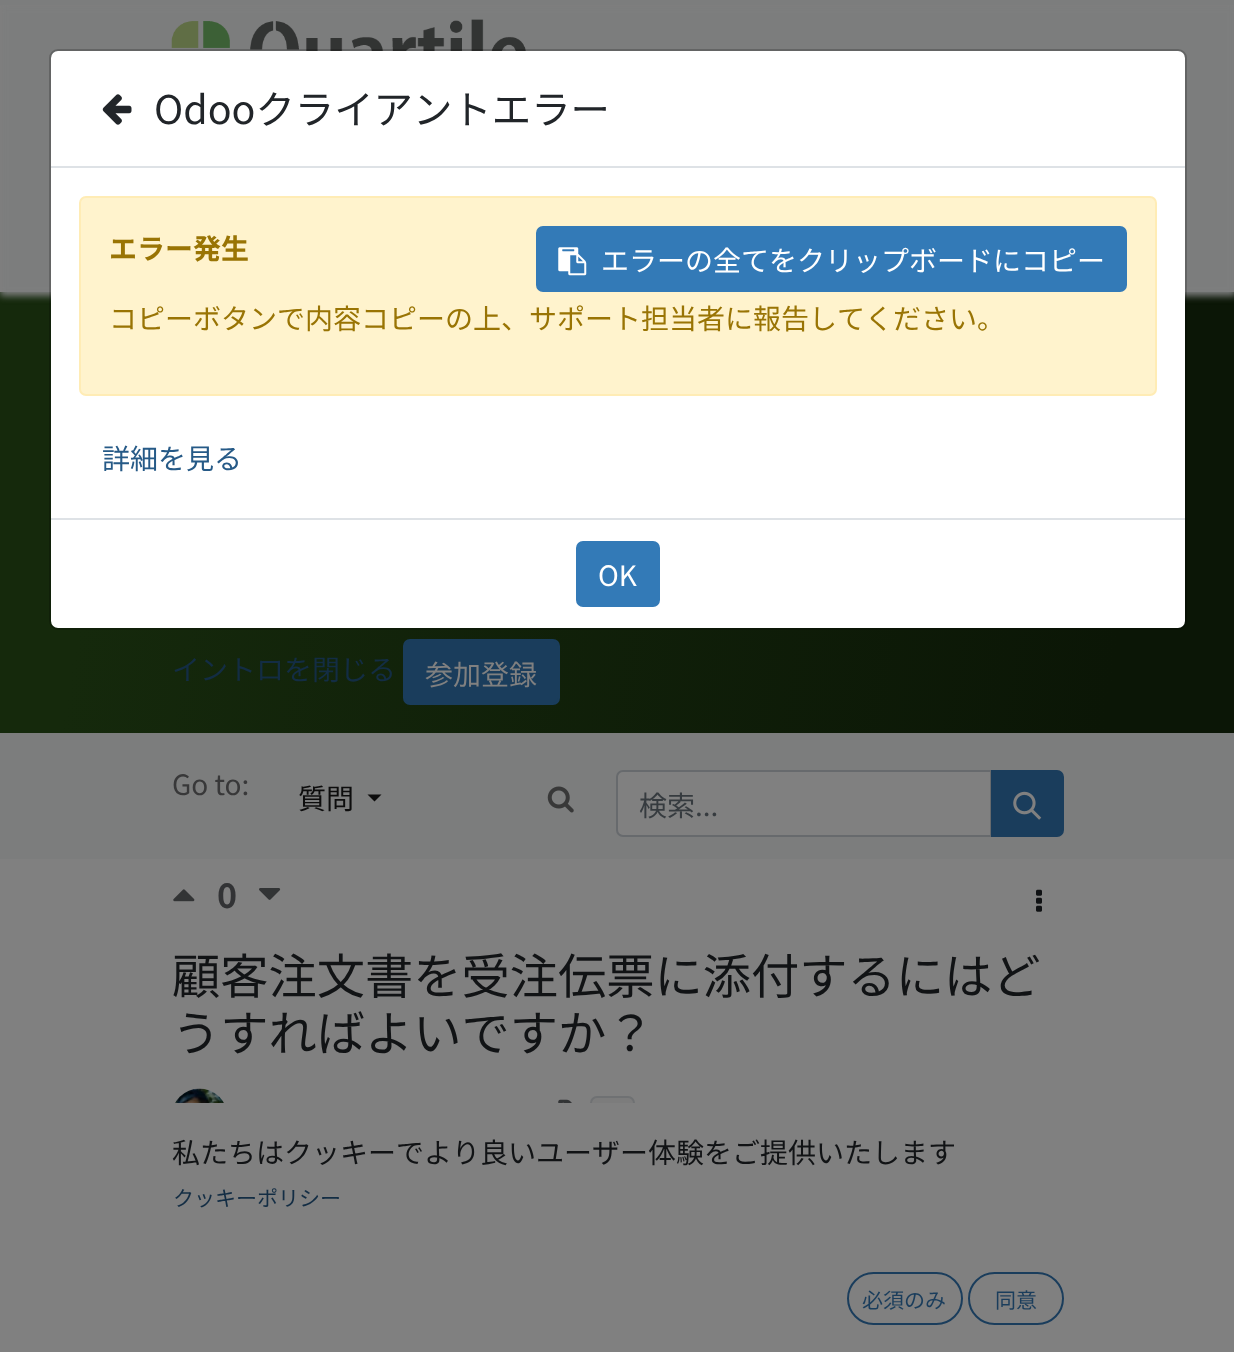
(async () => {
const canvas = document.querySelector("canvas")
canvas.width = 1234
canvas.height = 1352
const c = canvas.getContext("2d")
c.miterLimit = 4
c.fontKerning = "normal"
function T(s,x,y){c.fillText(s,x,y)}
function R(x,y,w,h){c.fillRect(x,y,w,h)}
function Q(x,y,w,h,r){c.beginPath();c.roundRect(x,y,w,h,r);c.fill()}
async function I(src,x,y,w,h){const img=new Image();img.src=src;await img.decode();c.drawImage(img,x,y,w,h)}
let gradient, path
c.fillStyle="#808080"
R(0,0,1234,1352)
gradient = c.createLinearGradient(-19,412,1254,614)
gradient.addColorStop(.1,"#15290c")
gradient.addColorStop(.9,"#0b1606")
c.fillStyle = gradient
R(0,292,1234,441)
c.fillStyle="#7c7d7d"
c.filter="blur(3.5px)"
c.beginPath()
c.rect(0,4,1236,292)
c.fill()
c.filter="none"
c.fillStyle="#fff"
Q(51,51,1134,577,7)
await I("3.png",171,19,355,32)
c.beginPath()
c.roundRect(50,50,1136,579,8)
c.strokeStyle="#00000033"
c.lineWidth=2
c.stroke()
c.fillStyle="#dee2e6"
R(51,166,1134,2)
await I("1.png",102,94,30,31)
c.font="39.4px Noto Sans JP"
c.fillStyle="#212529"
T("Odooクライアントエラー",154,124)
c.fillStyle="#fff3cd"
c.beginPath()
c.roundRect(80,197,1076,198,6)
c.fill()
c.strokeStyle="#ffecb5"
c.stroke()
c.font="bold 28px Noto Sans JP"
c.fillStyle="#997404"
T("エラー発生",109,259)
c.fillStyle="#337ab7"
c.beginPath()
c.roundRect(537,227,589,64,6)
c.fill()
c.strokeStyle="#337ab7"
c.stroke()
await I("2.png",558,247,29,29)
c.font="28px Noto Sans JP"
c.fillStyle="#fff"
T("エラーの全てをクリップボードにコピー",601,271)
c.fillStyle="#997404"
T("コピーボタンで内容コピーの上、サポート担当者に報告してください。",109,329)
c.fillStyle="#265a87"
T("詳細を見る",102,469)
c.fillStyle="#dee2e6"
R(51,518,1134,2)
c.fillStyle="#337ab7"
c.beginPath()
c.roundRect(577,542,82,64,6)
c.fill()
c.stroke()
c.fillStyle="#fff"
T("OK",598,586)
c.fillStyle="#7c7d7d"
R(0,0,1234,5)
c.fillStyle="#132d44"
T("イントロを閉じる",172,680)
c.fillStyle="#1a3d5c"
c.beginPath()
c.roundRect(404,640,155,64,6)
c.fill()
c.strokeStyle="#1a3d5c"
c.stroke()
c.fillStyle="#808080"
T("参加登録",425,685)
c.fillStyle="#7c7d7d"
R(0,733,1234,126)
c.fillStyle="#383839"
T("Go to:",172,795)
c.fillStyle="#0d0d0d"
T("質問",298,809)
path = new Path2D("M367.5 794.5h14l-7 7z")
c.fill(path)
await I("4.png",547,786,27,27)
c.fillStyle="#808080"
c.beginPath()
c.roundRect(617,771,374,65,[6,0,0,6])
c.fill()
c.strokeStyle="#676a6d"
c.stroke()
c.fillStyle="#363b3f"
T("検索...",639,816)
c.fillStyle="#1a3d5c"
c.beginPath()
c.roundRect(992,771,71,65,[0,6,6,0])
c.fill()
c.strokeStyle="#1a3d5c"
c.stroke()
await I("5.png",1013,791,29,29)
await I("6.png",173,889,22,13)
c.font="bold 34px Noto Sans JP"
c.fillStyle="#323335"
T("0",217,908)
await I("7.png",259,888,22,12)
await I("8.png",1036,889,6,23)
c.font="48.25px Noto Sans JP"
c.fillStyle="#111315"
T("顧客注文書を受注伝票に添付するにはど",172,994)
T("うすればよいですか？",172,1051)
await I("9.png",175,1088,49,15)
await I("10.png",558,1099,14,4)
c.fillStyle="#7c7c7c"
c.beginPath()
c.roundRect(591,1097,43,33,6)
c.fill()
c.strokeStyle="#6f7173"
c.stroke()
c.fillStyle="#808080"
R(590,1103,45,28)
c.font="28px Noto Sans JP"
c.fillStyle="#111315"
T("私たちはクッキーでより良いユーザー体験をご提供いたします",172,1163)
c.font="21px Noto Sans JP"
c.fillStyle="#132d44"
T("クッキーポリシー",173,1206)
c.beginPath()
c.roundRect(848,1273,114,51,25.5)
c.strokeStyle="#1a3d5c"
c.stroke()
c.fillStyle="#1a3d5c"
T("必須のみ",862,1308)
c.beginPath()
c.roundRect(969,1273,94,51,25.5)
c.stroke()
T("同意",995,1308)
})()
